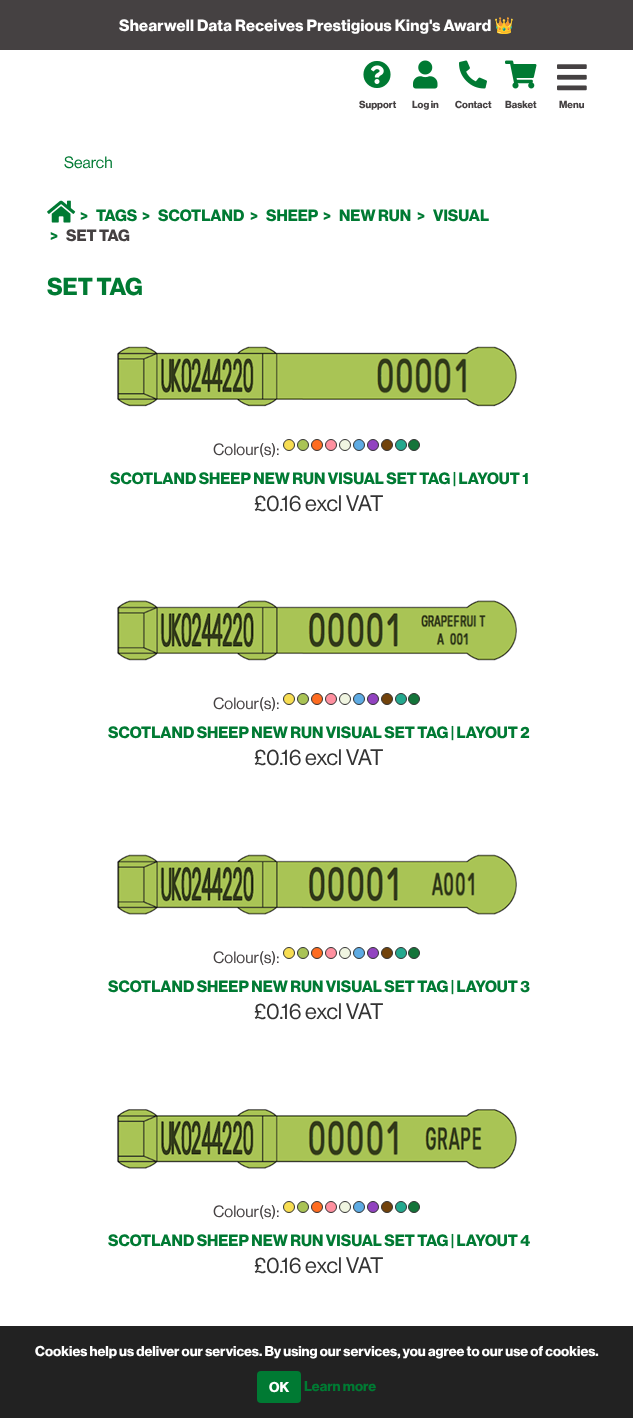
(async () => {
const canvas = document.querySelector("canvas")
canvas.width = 633
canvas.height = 1418
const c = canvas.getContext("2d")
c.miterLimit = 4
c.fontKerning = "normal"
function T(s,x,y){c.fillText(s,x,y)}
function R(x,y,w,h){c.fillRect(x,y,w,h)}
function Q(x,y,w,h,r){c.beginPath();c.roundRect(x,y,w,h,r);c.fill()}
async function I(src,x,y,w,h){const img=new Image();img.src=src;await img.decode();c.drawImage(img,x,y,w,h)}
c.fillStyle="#fff"
R(0,0,633,1418)
c.fillStyle="#454142"
R(0,0,633,50)
c.letterSpacing="0.3px"
c.font="bold 16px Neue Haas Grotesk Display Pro"
c.fillStyle="#fff"
T("Shearwell Data Receives Prestigious King's Award",119,31)
c.font="bold 16px Noto Color Emoji"
T("👑",494,31)
await I("1.png",363,61,28,27)
c.letterSpacing="0px"
c.font="bold 10px Neue Haas Grotesk Display Pro"
c.fillStyle="#454142"
T("Support",359,108)
await I("2.png",413,60,25,29)
T("Log in",412,108)
await I("3.png",459,60,28,29)
T("Contact",455,108)
await I("4.png",505,60,32,29)
T("Basket",505,108)
c.font="500 16px Neue Haas Grotesk Display Pro"
c.fillStyle="#007a33"
T("Search",64,168)
await I("5.png",557,64,30,27)
c.font="bold 10px Neue Haas Grotesk Display Pro"
c.fillStyle="#454142"
T("Menu",559,108)
await I("6.png",47,200,29,23)
c.font="bold 16px Neue Haas Grotesk Display Pro"
c.fillStyle="#007a33"
T(">",80,221)
T("TAGS",96,221)
T(">",142,221)
T("SCOTLAND",158,221)
T(">",250,221)
T("SHEEP",266,221)
T(">",323,221)
T("NEW RUN",339,221)
T(">",417,221)
T("VISUAL",433,221)
T(">",50,241)
c.fillStyle="#454142"
T("SET TAG",66,241)
c.font="bold 24px Neue Haas Grotesk Display Pro"
c.fillStyle="#007a33"
T("SET TAG",47,295)
await I("7.png",117,346,400,61)
c.font="500 16px Neue Haas Grotesk Display Pro"
c.fillStyle="#454142"
T("Colour(s):",213,455)
c.fillStyle="#f7dd52"
c.beginPath()
c.arc(289,445,5.5,0,7)
c.fill()
c.strokeStyle="#333"
c.stroke()
c.fillStyle="#a9c355"
c.beginPath()
c.arc(303,445,5.5,0,7)
c.fill()
c.stroke()
c.fillStyle="#fe6c21"
c.beginPath()
c.arc(317,445,5.5,0,7)
c.fill()
c.stroke()
c.fillStyle="#ff90a0"
c.beginPath()
c.arc(331,445,5.5,0,7)
c.fill()
c.stroke()
c.fillStyle="#f0f5e1"
c.beginPath()
c.arc(345,445,5.5,0,7)
c.fill()
c.stroke()
c.fillStyle="#5eabe3"
c.beginPath()
c.arc(359,445,5.5,0,7)
c.fill()
c.stroke()
c.fillStyle="#9243c0"
c.beginPath()
c.arc(373,445,5.5,0,7)
c.fill()
c.stroke()
c.fillStyle="#72430b"
c.beginPath()
c.arc(387,445,5.5,0,7)
c.fill()
c.stroke()
c.fillStyle="#24a88e"
c.beginPath()
c.arc(401,445,5.5,0,7)
c.fill()
c.stroke()
c.fillStyle="#14743a"
c.beginPath()
c.arc(414,445,5.5,0,7)
c.fill()
c.stroke()
c.font="bold 16px Neue Haas Grotesk Display Pro"
c.fillStyle="#007a33"
T("SCOTLAND SHEEP NEW RUN VISUAL SET TAG | LAYOUT 1",110,484)
c.font="500 22px Neue Haas Grotesk Display Pro"
c.fillStyle="#333"
T("£0.16 excl VAT",254,511)
await I("8.png",117,600,400,61)
c.font="500 16px Neue Haas Grotesk Display Pro"
c.fillStyle="#454142"
T("Colour(s):",213,709)
c.fillStyle="#f7dd52"
c.beginPath()
c.arc(289,699,5.5,0,7)
c.fill()
c.stroke()
c.fillStyle="#a9c355"
c.beginPath()
c.arc(303,699,5.5,0,7)
c.fill()
c.stroke()
c.fillStyle="#fe6c21"
c.beginPath()
c.arc(317,699,5.5,0,7)
c.fill()
c.stroke()
c.fillStyle="#ff90a0"
c.beginPath()
c.arc(331,699,5.5,0,7)
c.fill()
c.stroke()
c.fillStyle="#f0f5e1"
c.beginPath()
c.arc(345,699,5.5,0,7)
c.fill()
c.stroke()
c.fillStyle="#5eabe3"
c.beginPath()
c.arc(359,699,5.5,0,7)
c.fill()
c.stroke()
c.fillStyle="#9243c0"
c.beginPath()
c.arc(373,699,5.5,0,7)
c.fill()
c.stroke()
c.fillStyle="#72430b"
c.beginPath()
c.arc(387,699,5.5,0,7)
c.fill()
c.stroke()
c.fillStyle="#24a88e"
c.beginPath()
c.arc(401,699,5.5,0,7)
c.fill()
c.stroke()
c.fillStyle="#14743a"
c.beginPath()
c.arc(414,699,5.5,0,7)
c.fill()
c.stroke()
c.font="bold 16px Neue Haas Grotesk Display Pro"
c.fillStyle="#007a33"
T("SCOTLAND SHEEP NEW RUN VISUAL SET TAG | LAYOUT 2",108,738)
c.font="500 22px Neue Haas Grotesk Display Pro"
c.fillStyle="#333"
T("£0.16 excl VAT",254,765)
await I("9.png",117,854,400,61)
c.font="500 16px Neue Haas Grotesk Display Pro"
c.fillStyle="#454142"
T("Colour(s):",213,963)
c.fillStyle="#f7dd52"
c.beginPath()
c.arc(289,953,5.5,0,7)
c.fill()
c.stroke()
c.fillStyle="#a9c355"
c.beginPath()
c.arc(303,953,5.5,0,7)
c.fill()
c.stroke()
c.fillStyle="#fe6c21"
c.beginPath()
c.arc(317,953,5.5,0,7)
c.fill()
c.stroke()
c.fillStyle="#ff90a0"
c.beginPath()
c.arc(331,953,5.5,0,7)
c.fill()
c.stroke()
c.fillStyle="#f0f5e1"
c.beginPath()
c.arc(345,953,5.5,0,7)
c.fill()
c.stroke()
c.fillStyle="#5eabe3"
c.beginPath()
c.arc(359,953,5.5,0,7)
c.fill()
c.stroke()
c.fillStyle="#9243c0"
c.beginPath()
c.arc(373,953,5.5,0,7)
c.fill()
c.stroke()
c.fillStyle="#72430b"
c.beginPath()
c.arc(387,953,5.5,0,7)
c.fill()
c.stroke()
c.fillStyle="#24a88e"
c.beginPath()
c.arc(401,953,5.5,0,7)
c.fill()
c.stroke()
c.fillStyle="#14743a"
c.beginPath()
c.arc(414,953,5.5,0,7)
c.fill()
c.stroke()
c.font="bold 16px Neue Haas Grotesk Display Pro"
c.fillStyle="#007a33"
T("SCOTLAND SHEEP NEW RUN VISUAL SET TAG | LAYOUT 3",108,992)
c.font="500 22px Neue Haas Grotesk Display Pro"
c.fillStyle="#333"
T("£0.16 excl VAT",254,1019)
await I("10.png",117,1109,400,60)
c.font="500 16px Neue Haas Grotesk Display Pro"
c.fillStyle="#454142"
T("Colour(s):",213,1217)
c.fillStyle="#f7dd52"
c.beginPath()
c.arc(289,1207,5.5,0,7)
c.fill()
c.stroke()
c.fillStyle="#a9c355"
c.beginPath()
c.arc(303,1207,5.5,0,7)
c.fill()
c.stroke()
c.fillStyle="#fe6c21"
c.beginPath()
c.arc(317,1207,5.5,0,7)
c.fill()
c.stroke()
c.fillStyle="#ff90a0"
c.beginPath()
c.arc(331,1207,5.5,0,7)
c.fill()
c.stroke()
c.fillStyle="#f0f5e1"
c.beginPath()
c.arc(345,1207,5.5,0,7)
c.fill()
c.stroke()
c.fillStyle="#5eabe3"
c.beginPath()
c.arc(359,1207,5.5,0,7)
c.fill()
c.stroke()
c.fillStyle="#9243c0"
c.beginPath()
c.arc(373,1207,5.5,0,7)
c.fill()
c.stroke()
c.fillStyle="#72430b"
c.beginPath()
c.arc(387,1207,5.5,0,7)
c.fill()
c.stroke()
c.fillStyle="#24a88e"
c.beginPath()
c.arc(401,1207,5.5,0,7)
c.fill()
c.stroke()
c.fillStyle="#14743a"
c.beginPath()
c.arc(414,1207,5.5,0,7)
c.fill()
c.stroke()
c.font="bold 16px Neue Haas Grotesk Display Pro"
c.fillStyle="#007a33"
T("SCOTLAND SHEEP NEW RUN VISUAL SET TAG | LAYOUT 4",108,1246)
c.font="500 22px Neue Haas Grotesk Display Pro"
c.fillStyle="#333"
T("£0.16 excl VAT",254,1273)
c.fillStyle="#222"
R(0,1326,633,92)
c.font="bold 14px Neue Haas Grotesk Display Pro"
c.fillStyle="#fff"
T("Cookies help us deliver our services. By using our services, you agree to our use of cookies.",35,1356)
c.fillStyle="#007a33"
Q(257,1371,44,32,4)
c.fillStyle="#fff"
T("OK",269,1392)
c.fillStyle="#007a33"
T("Learn more",304,1391)
})()
